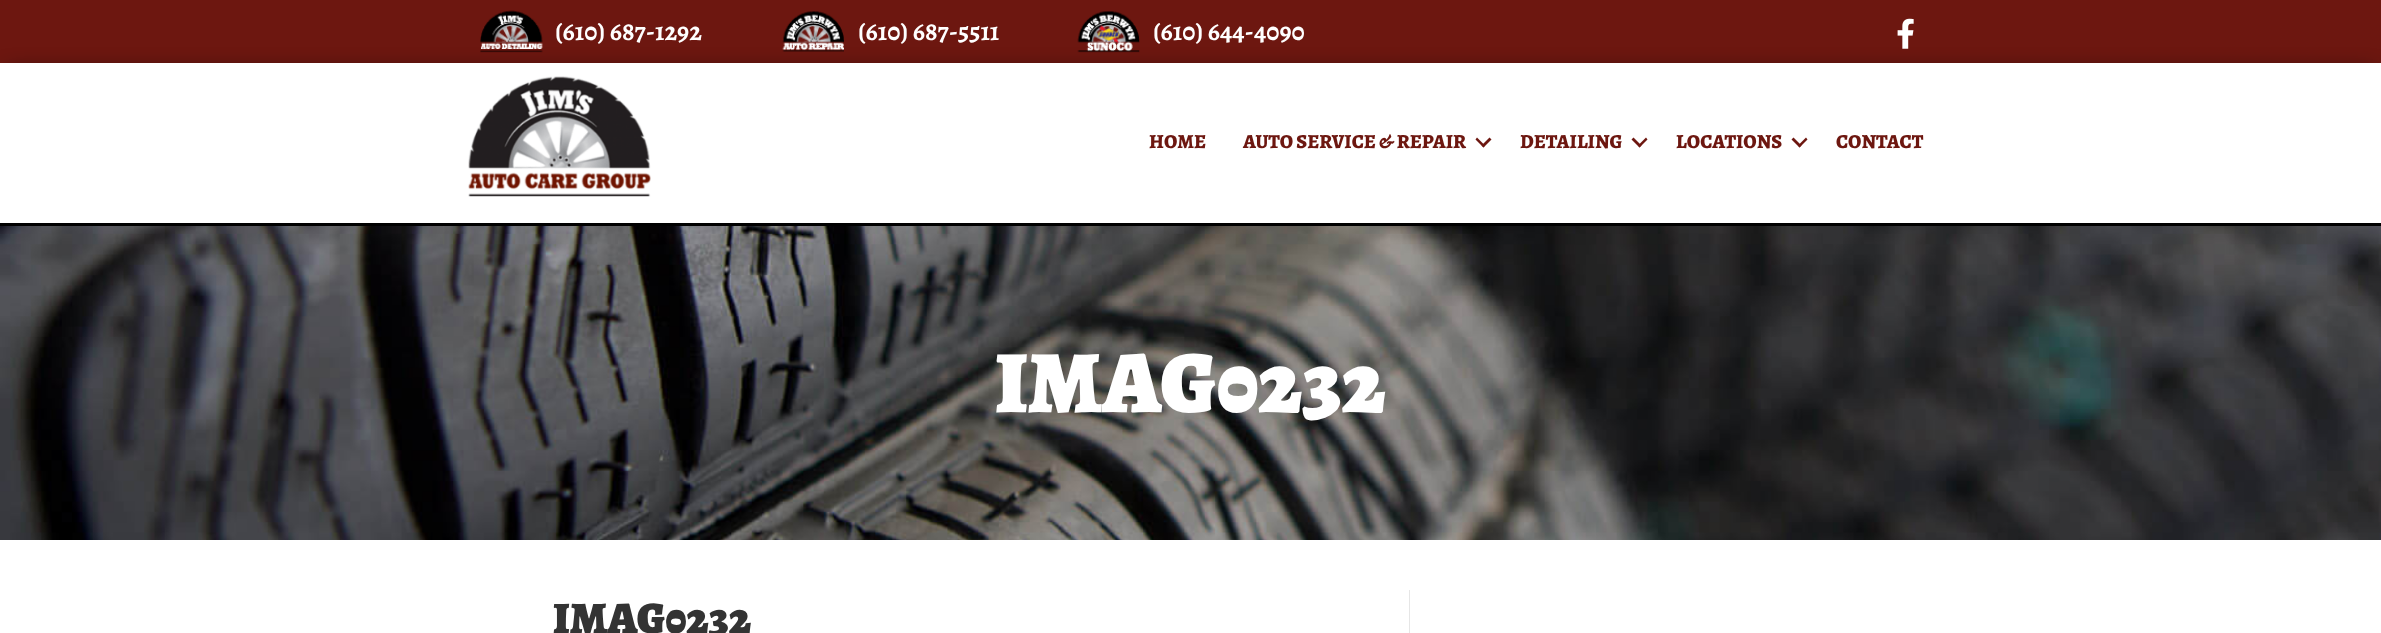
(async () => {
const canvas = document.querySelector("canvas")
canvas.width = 2381
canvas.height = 633
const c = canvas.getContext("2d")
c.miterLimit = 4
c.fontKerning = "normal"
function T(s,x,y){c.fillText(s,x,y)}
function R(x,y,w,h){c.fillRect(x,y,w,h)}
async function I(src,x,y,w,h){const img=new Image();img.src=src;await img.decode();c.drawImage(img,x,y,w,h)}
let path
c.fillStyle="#fff"
R(0,0,2381,633)
c.fillStyle="#6d1710"
R(0,0,2381,63)
await I("1.png",480,10,63,43)
c.font="bold 26.25px Alegreya SC"
c.fillStyle="#fff"
T("(610) 687-1292",555,40)
await I("2.png",782,11,62,41)
T("(610) 687-5511",858,40)
await I("3.png",1077,11,63,42)
T("(610) 644-4090",1153,40)
await I("4.png",1897,18,17,31)
c.fillStyle="#000000cc"
c.filter="blur(11px)"
c.beginPath()
c.rect(8,73,2366,148)
c.fill()
c.filter="none"
c.fillStyle="#fff"
R(0,63,2381,160)
c.fillStyle="#000"
R(0,223,2381,3)
await I("5.png",468,76,183,121)
c.font="800 20px Alegreya SC"
c.fillStyle="#6d1710"
T("HOME",1149,148)
T("AUTO SERVICE & REPAIR",1243,148)
path = new Path2D("M1489.5 137.5l2 2l-8 8l-2-2z")
c.fill(path)
path = new Path2D("M1477 137.5l8 8l-1.5 2l-8-8z")
c.fill(path)
T("DETAILING",1520,148)
path = new Path2D("M1646 137.5l1.5 2l-8 8l-1.5-2z")
c.fill(path)
path = new Path2D("M1633.5 137.5l8 8l-2 2l-8-8z")
c.fill(path)
T("LOCATIONS",1676,148)
path = new Path2D("M1806 137.5l1.5 2l-8 8l-1.5-2z")
c.fill(path)
path = new Path2D("M1793.5 137.5l8 8l-2 2l-8-8z")
c.fill(path)
T("CONTACT",1836,148)
await I("6.png",0,226,2381,314)
c.font="900 88.75px Alegreya SC"
c.fillStyle="#fff"
T("IMAG0232",995,412)
c.fillStyle="#e6e6e6"
R(1409,590,1,43)
c.font="900 45px Alegreya SC"
c.fillStyle="#333"
T("IMAG0232",553,633)
})()
